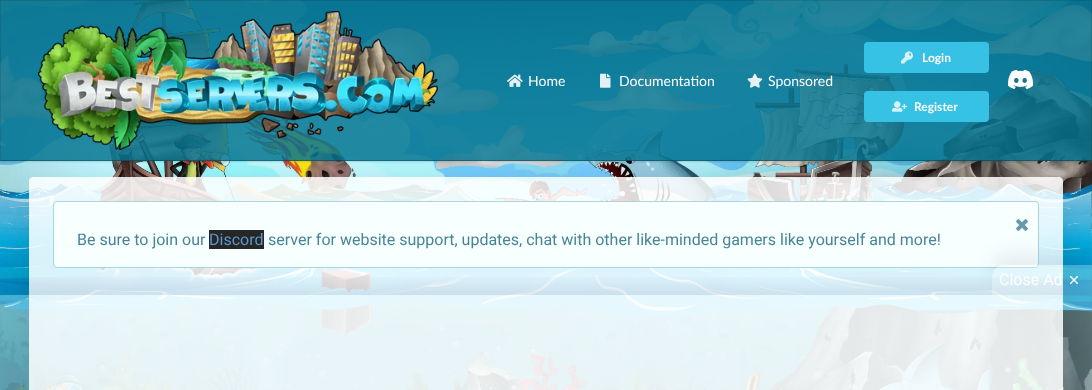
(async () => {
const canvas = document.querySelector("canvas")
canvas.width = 1092
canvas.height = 390
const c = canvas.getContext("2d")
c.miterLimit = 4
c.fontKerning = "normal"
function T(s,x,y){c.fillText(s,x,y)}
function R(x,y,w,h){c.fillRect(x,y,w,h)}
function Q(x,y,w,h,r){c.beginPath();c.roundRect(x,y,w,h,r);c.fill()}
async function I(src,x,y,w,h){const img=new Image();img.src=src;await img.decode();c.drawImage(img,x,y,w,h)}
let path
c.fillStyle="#fff"
R(0,0,1092,390)
await I("1.png",0,0,1092,390)
c.save()
c.beginPath()
c.rect(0,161,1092,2)
c.clip()
c.fillStyle="#22242626"
c.filter="blur(1px)"
c.beginPath()
c.rect(0,1,1092,161)
c.fill()
c.filter="none"
c.restore()
c.save()
path = new Path2D("M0 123h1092v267h-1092zm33 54h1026c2 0 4 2 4 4v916h-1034v-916c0-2 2-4 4-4z")
c.clip(path,"evenodd")
c.fillStyle="#00000033"
c.filter="blur(22.5px)"
c.beginPath()
c.roundRect(26,192,1044,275,9)
c.fill()
c.filter="none"
c.restore()
c.fillStyle="#04738fd6"
R(0,0,1092,161)
c.fillStyle="#22242626"
path = new Path2D("M0 0h1092l-1 1h-1090z")
c.fill(path)
path = new Path2D("M1092 0v161l-1-1v-159z")
c.fill(path)
c.fillStyle="#00000040"
path = new Path2D("M1092 161h-1092l1-1h1090z")
c.fill(path)
c.fillStyle="#22242626"
path = new Path2D("M0 161v-161l1 1v159z")
c.fill(path)
await I("2.png",38,11,400,139)
await I("3.png",507,74,16,13)
c.font="14px Lato"
c.fillStyle="#fdfeff"
T("Home",528,86)
await I("4.png",600,73,11,15)
T("Documentation",619,86)
await I("5.png",747,73,16,15)
T("Sponsored",768,86)
c.fillStyle="#37c2e6fc"
Q(864,42,125,31,4)
await I("6.png",901,51,12,13)
c.font="bold 12px Lato"
c.fillStyle="#fdfeff"
T("Login",922,62)
c.fillStyle="#37c2e6fc"
Q(864,91,125,31,4)
await I("7.png",892,101,15,11)
c.fillStyle="#fdfeff"
T("Register",914,111)
await I("8.png",1008,69,25,21)
c.fillStyle="#ffffffd9"
path = new Path2D("M33 177h1026c2 0 4 2 4 4v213h-1034v-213c0-2 2-4 4-4z")
c.fill(path)
c.fillStyle="#f8ffff"
c.beginPath()
c.roundRect(53.5,201.5,985,66,3.5)
c.fill()
c.strokeStyle="#a9d5de"
c.stroke()
await I("9.png",1016,219,12,12)
c.font="16px Roboto"
c.fillStyle="#468598"
T("Be sure to join our",77,245)
c.fillStyle="#252626"
R(209,230,55,19)
c.fillStyle="#5c96cd"
T("Discord",209,245)
c.fillStyle="#468598"
T("server for website support, updates, chat with other like-minded gamers like yourself and more!",268,245)
c.save()
c.beginPath()
c.rect(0,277,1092,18)
c.clip()
c.fillStyle="#09204c1a"
c.filter="blur(9px)"
c.beginPath()
c.rect(0,285,1092,95)
c.fill()
c.filter="none"
c.restore()
c.fillStyle="#ffffff40"
R(0,295,1092,95)
c.save()
path = new Path2D("M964 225h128v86h-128zm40 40h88v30h-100v-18c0-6.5 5.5-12 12-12z")
c.clip(path,"evenodd")
c.fillStyle="#09204c14"
c.filter="blur(9px)"
c.beginPath()
c.roundRect(992,253,100,30,12)
c.fill()
c.filter="none"
c.restore()
c.beginPath()
c.roundRect(992,265,100,30,[12,0,0,0])
c.fill()
c.fillStyle="#fdfeff"
T("Close Ad",999,285)
await I("10.png",1069,275,10,10)
})()
